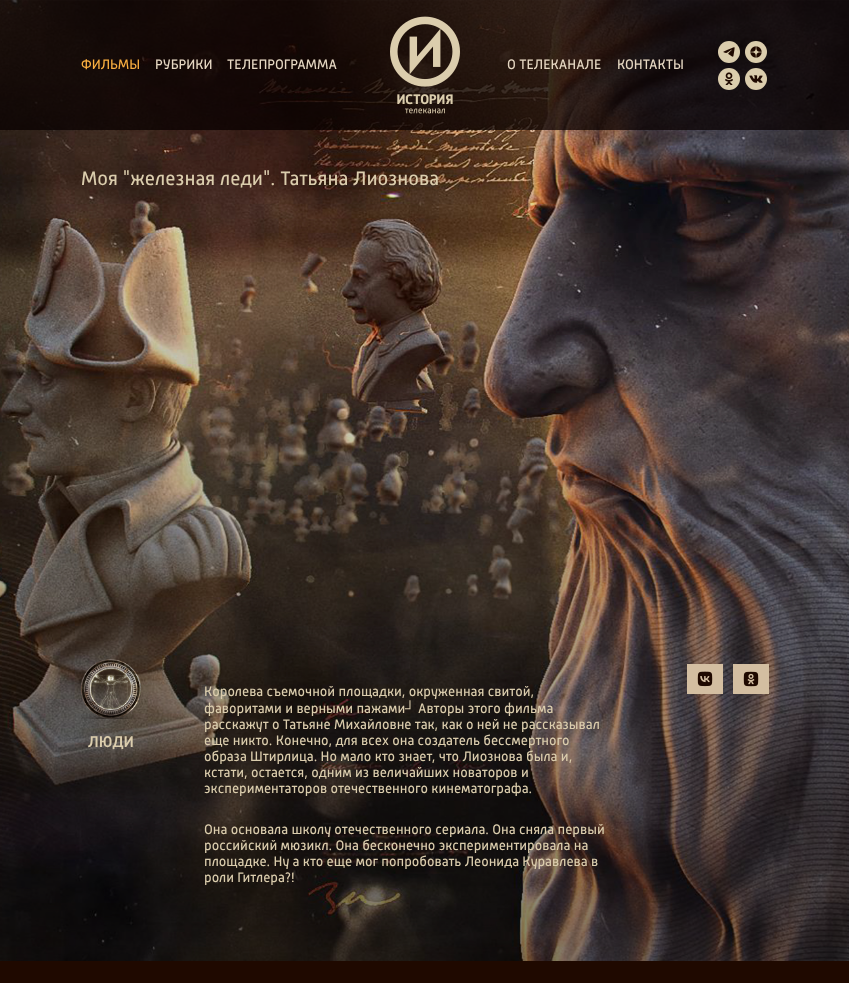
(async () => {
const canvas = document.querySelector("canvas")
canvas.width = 849
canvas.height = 983
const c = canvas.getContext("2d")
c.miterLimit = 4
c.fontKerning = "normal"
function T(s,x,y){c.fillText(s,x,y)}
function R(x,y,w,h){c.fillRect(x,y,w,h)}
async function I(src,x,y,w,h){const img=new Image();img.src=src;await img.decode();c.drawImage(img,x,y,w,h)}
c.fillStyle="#fff"
R(0,0,849,983)
await I("1.png",0,0,849,961)
c.fillStyle="#080000bf"
R(0,0,849,130)
c.font="14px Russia"
c.fillStyle="#faaf40"
T("ФИЛЬМЫ",81,69)
c.fillStyle="#e6d8c3"
T("РУБРИКИ",155,69)
T("ТЕЛЕПРОГРАММА",227,69)
await I("2.png",390,16,70,98)
T("О ТЕЛЕКАНАЛЕ",507,69)
T("КОНТАКТЫ",617,69)
c.fillStyle="#dbcdad"
c.beginPath()
c.arc(729,52,11,0,7)
c.fill()
await I("3.png",723,47,12,10)
c.beginPath()
c.arc(756,52,11,0,7)
c.fill()
await I("4.png",750,46,12,12)
c.beginPath()
c.arc(729,79,11,0,7)
c.fill()
await I("5.png",725,72,8,13)
c.beginPath()
c.arc(756,79,11,0,7)
c.fill()
await I("6.png",749,75,14,8)
c.font="20px Russia"
T("Моя \"железная леди\". Татьяна Лиознова",81,185)
c.fillStyle="#d3bea1"
R(687,664,36,30)
await I("7.png",697,671,16,16)
R(733,664,36,30)
await I("8.png",743,671,16,16)
await I("9.png",81,659,60,60)
c.font="500 16px Russia"
c.fillStyle="#dbcdad"
T("ЛЮДИ",88,747)
c.font="14px Russia"
T("Королева съемочной площадки, окруженная свитой,",204,696)
T("фаворитами и верными пажами",204,713)
c.font="14px Liberation Sans"
T("┘",405,713)
c.font="14px Russia"
T("Авторы этого фильма",418,713)
T("расскажут о Татьяне Михайловне так, как о ней не рассказывал",204,729)
T("еще никто. Конечно, для всех она создатель бессмертного",204,745)
T("образа Штирлица. Но мало кто знает, что Лиознова была и,",204,761)
T("кстати, остается, одним из величайших новаторов и",204,777)
T("экспериментаторов отечественного кинематографа.",204,793)
T("Она основала школу отечественного сериала. Она сняла первый",204,834)
T("российский мюзикл. Она бесконечно экспериментировала на",204,850)
T("площадке. Ну а кто еще мог попробовать Леонида Куравлева в",204,866)
T("роли Гитлера?!",204,882)
c.fillStyle="#1f0900"
R(0,961,849,22)
})()
